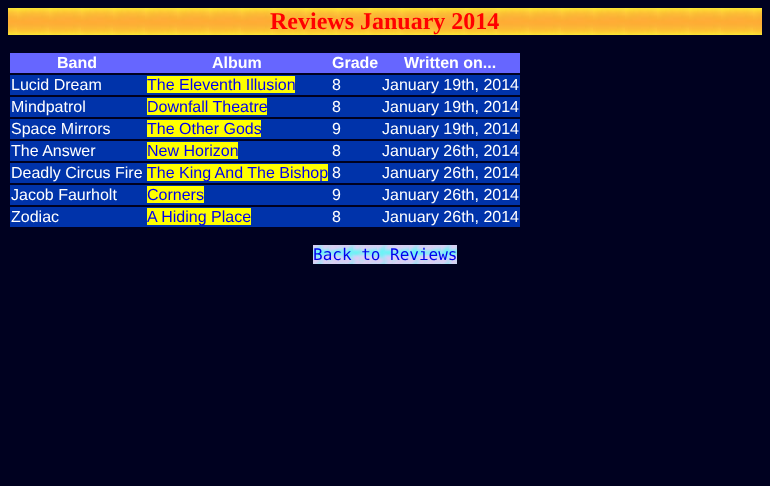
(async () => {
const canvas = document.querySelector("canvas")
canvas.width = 770
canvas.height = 486
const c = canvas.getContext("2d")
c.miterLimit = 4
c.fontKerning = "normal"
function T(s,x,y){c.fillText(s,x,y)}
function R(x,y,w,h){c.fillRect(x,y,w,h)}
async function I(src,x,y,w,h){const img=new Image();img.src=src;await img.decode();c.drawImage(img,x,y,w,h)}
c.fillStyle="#000120"
R(0,0,770,486)
await I("1.png",8,8,754,27)
c.font="bold 24px Liberation Serif"
c.fillStyle="#f00"
T("Reviews January 2014",270,29)
c.fillStyle="#66f"
R(10,53,510,20)
c.font="bold 16px Liberation Sans"
c.fillStyle="#fff"
T("Band",57,68)
T("Album",212,68)
T("Grade",332,68)
T("Written on...",404,68)
c.fillStyle="#03a"
R(10,75,510,20)
c.font="16px Liberation Sans"
c.fillStyle="#fff"
T("Lucid Dream",11,90)
c.fillStyle="#ff0"
R(147,76,148,17)
c.fillStyle="#00e"
T("The Eleventh Illusion",147,90)
c.fillStyle="#fff"
T("8",332,90)
T("January 19th, 2014",382,90)
c.fillStyle="#03a"
R(10,97,510,20)
c.fillStyle="#fff"
T("Mindpatrol",11,112)
c.fillStyle="#ff0"
R(147,98,120,17)
c.fillStyle="#00e"
T("Downfall Theatre",147,112)
c.fillStyle="#fff"
T("8",332,112)
T("January 19th, 2014",382,112)
c.fillStyle="#03a"
R(10,119,510,20)
c.fillStyle="#fff"
T("Space Mirrors",11,134)
c.fillStyle="#ff0"
R(147,120,114,17)
c.fillStyle="#00e"
T("The Other Gods",147,134)
c.fillStyle="#fff"
T("9",332,134)
T("January 19th, 2014",382,134)
c.fillStyle="#03a"
R(10,141,510,20)
c.fillStyle="#fff"
T("The Answer",11,156)
c.fillStyle="#ff0"
R(147,142,91,17)
c.fillStyle="#00e"
T("New Horizon",147,156)
c.fillStyle="#fff"
T("8",332,156)
T("January 26th, 2014",382,156)
c.fillStyle="#03a"
R(10,163,510,20)
c.fillStyle="#fff"
T("Deadly Circus Fire",11,178)
c.fillStyle="#ff0"
R(147,164,181,17)
c.fillStyle="#00e"
T("The King And The Bishop",147,178)
c.fillStyle="#fff"
T("8",332,178)
T("January 26th, 2014",382,178)
c.fillStyle="#03a"
R(10,185,510,20)
c.fillStyle="#fff"
T("Jacob Faurholt",11,200)
c.fillStyle="#ff0"
R(147,186,57,17)
c.fillStyle="#00e"
T("Corners",147,200)
c.fillStyle="#fff"
T("9",332,200)
T("January 26th, 2014",382,200)
c.fillStyle="#03a"
R(10,207,510,20)
c.fillStyle="#fff"
T("Zodiac",11,222)
c.fillStyle="#ff0"
R(147,208,104,17)
c.fillStyle="#00e"
T("A Hiding Place",147,222)
c.fillStyle="#fff"
T("8",332,222)
T("January 26th, 2014",382,222)
await I("2.png",313,245,144,19)
c.font="16px DejaVu Sans Mono"
c.fillStyle="#00e"
T("Back to Reviews",313,260)
})()
